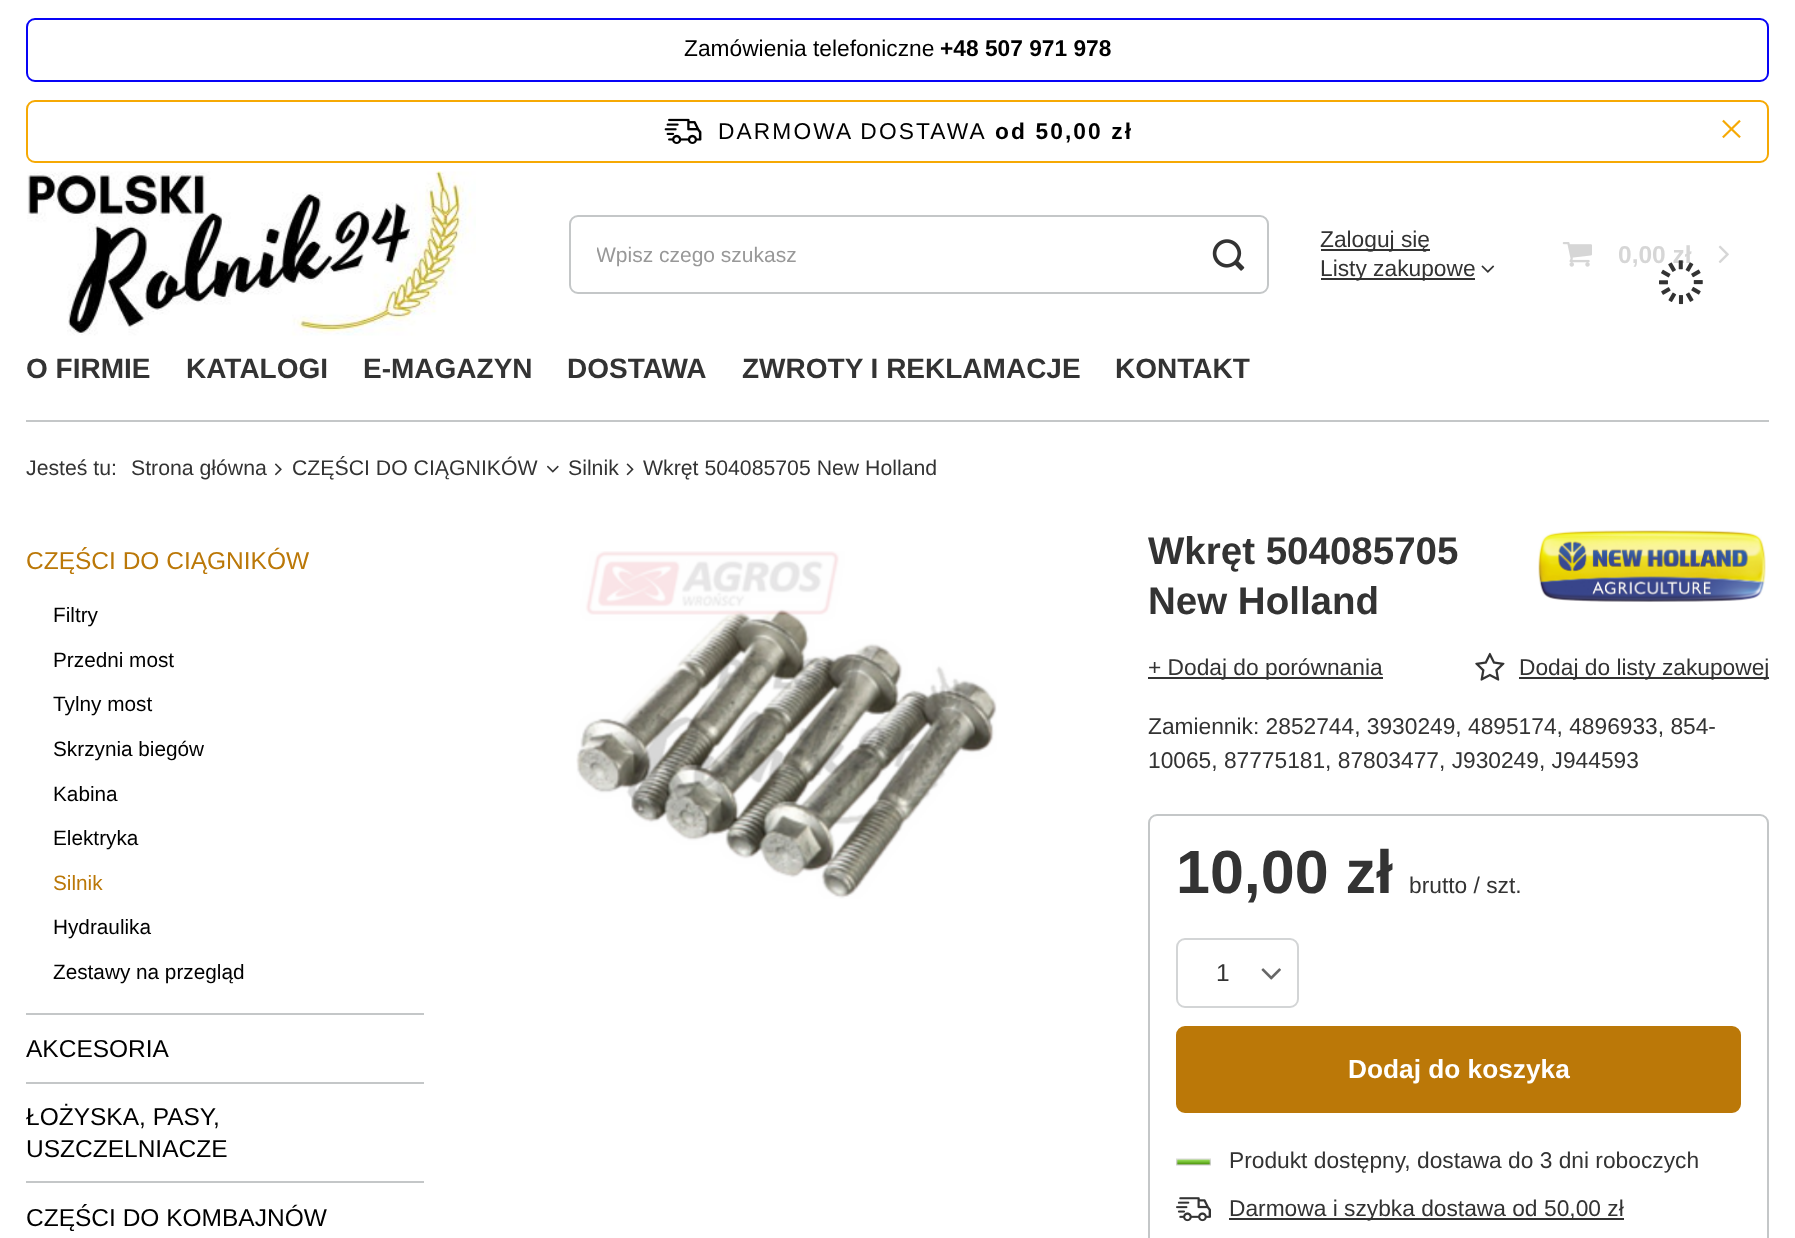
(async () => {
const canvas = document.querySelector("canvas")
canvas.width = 1795
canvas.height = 1238
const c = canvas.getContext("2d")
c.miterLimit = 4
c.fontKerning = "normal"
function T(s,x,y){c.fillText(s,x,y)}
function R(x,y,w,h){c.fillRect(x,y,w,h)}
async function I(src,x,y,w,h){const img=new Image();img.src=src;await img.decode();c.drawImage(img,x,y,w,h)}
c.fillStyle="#fff"
R(0,0,1795,1238)
c.beginPath()
c.roundRect(27,19,1741,62,8)
c.strokeStyle="#0804f6"
c.lineWidth=2
c.stroke()
c.font="22.75px Liberation Sans"
c.fillStyle="#000"
T("Zamówienia telefoniczne",684,56)
c.font="bold 22.75px Liberation Sans"
T("+48 507 971 978",940,56)
c.beginPath()
c.roundRect(27,101,1741,61,8)
c.strokeStyle="#f6a904"
c.stroke()
await I("1.png",664,118,38,26)
c.letterSpacing="2.1px"
c.font="22.75px Liberation Sans"
T("DARMOWA DOSTAWA",718,139)
c.font="bold 22.75px Liberation Sans"
T("od 50,00 zł",995,139)
await I("2.png",1722,119,19,20)
await I("3.png",27,171,449,165)
c.beginPath()
c.roundRect(570,216,698,77,8)
c.strokeStyle="#c4c7c8"
c.stroke()
c.save()
c.beginPath()
c.rect(597,243,539,25)
c.clip()
c.letterSpacing="0px"
c.font="21px Liberation Sans"
c.fillStyle="#989898"
T("Wpisz czego szukasz",596,262)
c.restore()
await I("4.png",1212,239,33,32)
c.fillStyle="#333"
R(1321,249,109,2)
c.letterSpacing="0px"
c.font="22.75px Liberation Sans"
T("Zaloguj się",1320,247)
R(1321,278,154,2)
T("Listy zakupowe",1320,276)
await I("5.png",1481,265,14,8)
await I("6.png",1562,242,30,25)
c.font="bold 24.5px Liberation Sans"
c.fillStyle="#d6d6d6"
T("0,00 zł",1618,263)
await I("7.png",1718,245,11,19)
await I("8.png",1659,260,44,45)
c.fillStyle="#c4c7c8"
R(26,420,1743,2)
c.font="bold 28px Liberation Sans"
c.fillStyle="#333"
T("O FIRMIE",26,378)
T("KATALOGI",186,378)
T("E-MAGAZYN",363,378)
T("DOSTAWA",567,378)
T("ZWROTY I REKLAMACJE",742,378)
T("KONTAKT",1115,378)
c.font="21.25px Liberation Sans"
T("Jesteś tu:",26,475)
T("Strona główna",131,475)
await I("9.png",274,463,8,13)
T("CZĘŚCI DO CIĄGNIKÓW",292,475)
await I("10.png",547,465,12,8)
T("Silnik",568,475)
await I("11.png",626,463,8,13)
T("Wkręt 504085705 New Holland",643,475)
c.fillStyle="#c4c7c8"
R(26,1013,398,2)
c.font="24.5px Liberation Sans"
c.fillStyle="#bb7808"
T("CZĘŚCI DO CIĄGNIKÓW",26,569)
c.font="20.75px Liberation Sans"
c.fillStyle="#000"
T("Filtry",53,622)
T("Przedni most",53,667)
T("Tylny most",53,711)
T("Skrzynia biegów",53,756)
T("Kabina",53,801)
T("Elektryka",53,845)
c.fillStyle="#bb7808"
T("Silnik",53,890)
c.fillStyle="#000"
T("Hydraulika",53,934)
T("Zestawy na przegląd",53,979)
c.fillStyle="#c4c7c8"
R(26,1082,398,2)
c.font="24.5px Liberation Sans"
c.fillStyle="#000"
T("AKCESORIA",26,1057)
c.fillStyle="#c4c7c8"
R(26,1181,398,2)
c.fillStyle="#000"
T("ŁOŻYSKA, PASY,",26,1125)
T("USZCZELNIACZE",26,1157)
T("CZĘŚCI DO KOMBAJNÓW",26,1226)
await I("12.png",576,551,421,348)
c.font="bold 38.5px Liberation Sans"
c.fillStyle="#333"
T("Wkręt 504085705",1148,564)
T("New Holland",1148,614)
await I("13.png",1538,530,228,72)
R(1148,677,235,2)
c.font="22.75px Liberation Sans"
T("+ Dodaj do porównania",1148,675)
await I("14.png",1475,652,30,29)
R(1519,677,250,2)
T("Dodaj do listy zakupowej",1519,675)
T("Zamiennik: 2852744, 3930249, 4895174, 4896933, 854-",1148,734)
T("10065, 87775181, 87803477, J930249, J944593",1148,768)
c.beginPath()
c.roundRect(1149,815,619,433,8)
c.stroke()
c.font="bold 61px Liberation Sans"
T("10,00 zł",1176,893)
c.font="22.75px Liberation Sans"
T("brutto / szt.",1409,893)
c.beginPath()
c.roundRect(1177,939,121,68,8)
c.strokeStyle="#d3d5d6"
c.stroke()
await I("15.png",1261,968,20,12)
c.font="24.5px Liberation Sans"
T("1",1216,981)
c.fillStyle="#bb7808"
c.beginPath()
c.roundRect(1177,1027,563,85,8)
c.fill()
c.strokeStyle="#bb7808"
c.stroke()
c.font="bold 26.25px Liberation Sans"
c.fillStyle="#fff"
T("Dodaj do koszyka",1348,1078)
await I("16.png",1176,1158,35,8)
c.font="22.75px Liberation Sans"
c.fillStyle="#333"
T("Produkt dostępny, dostawa do 3 dni roboczych",1229,1168)
await I("17.png",1176,1197,35,25)
R(1229,1218,276,2)
T("Darmowa i szybka dostawa od",1229,1216)
R(1505,1218,119,2)
T("50,00 zł",1544,1216)
})()
